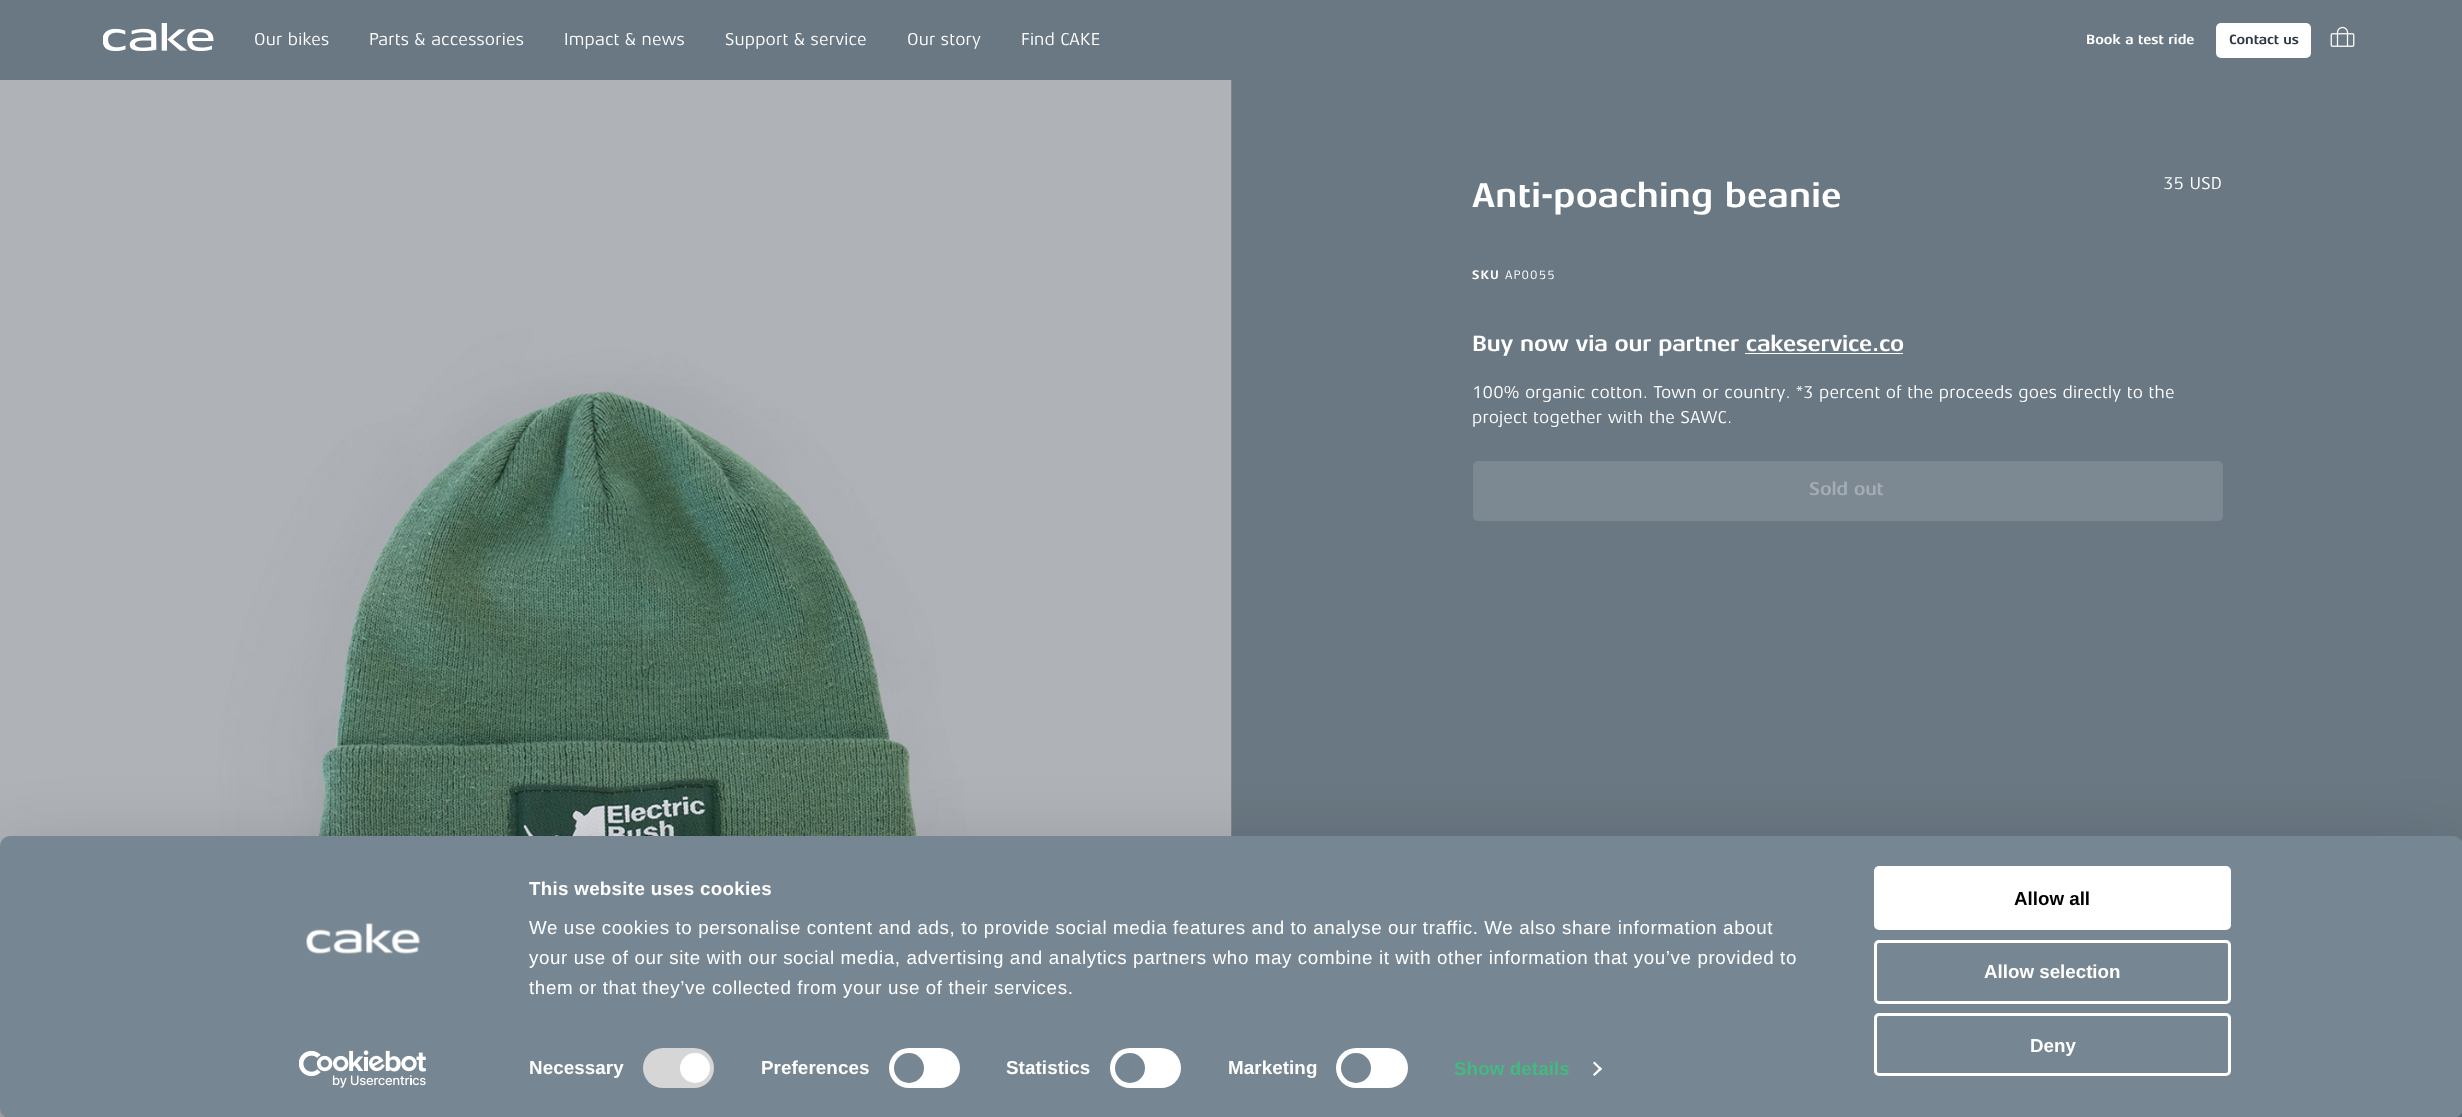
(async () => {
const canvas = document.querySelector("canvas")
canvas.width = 2462
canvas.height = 1117
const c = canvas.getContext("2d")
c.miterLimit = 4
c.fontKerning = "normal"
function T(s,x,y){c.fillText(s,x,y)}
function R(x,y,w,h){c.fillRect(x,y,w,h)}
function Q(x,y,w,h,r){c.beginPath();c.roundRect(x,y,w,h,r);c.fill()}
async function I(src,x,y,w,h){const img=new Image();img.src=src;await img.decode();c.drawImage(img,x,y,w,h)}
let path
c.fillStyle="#6a7883"
R(0,0,2462,1117)
await I("1.png",103,23,111,28)
c.letterSpacing="0.18px"
c.font="17.5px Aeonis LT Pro"
c.fillStyle="#fff"
T("Our bikes",254,45)
T("Parts & accessories",369,45)
T("Impact & news",564,45)
T("Support & service",725,45)
T("Our story",907,45)
T("Find CAKE",1021,45)
c.letterSpacing="0px"
c.font="bold 13.75px Aeonis LT Pro"
T("Book a test ride",2086,44)
Q(2216,23,95,35,5)
c.letterSpacing="-0.1px"
c.fillStyle="#2e3844"
T("Contact us",2229,44)
await I("2.png",2330,26,25,21)
await I("3.png",0,80,1232,1037)
c.letterSpacing="0.18px"
c.font="bold 35px Aeonis LT Pro"
c.fillStyle="#fff"
T("Anti-poaching beanie",1472,207)
c.font="17.5px Aeonis LT Pro"
T("35 USD",2163,189)
c.letterSpacing="1px"
c.font="bold 12.5px Aeonis LT Pro"
T("SKU",1472,279)
c.font="12.5px Aeonis LT Pro"
T("AP0055",1505,279)
c.letterSpacing="-0.2px"
c.font="bold 22.5px Aeonis LT Pro"
T("Buy now via our partner cakeservice.co",1472,351)
R(1745,353,158,1)
c.letterSpacing="0.18px"
c.font="17.5px Aeonis LT Pro"
T("100% organic cotton. Town or country. *3 percent of the proceeds goes directly to the",1472,398)
T("project together with the SAWC.",1472,423)
c.fillStyle="#7c8892"
Q(1473,461,750,60,5)
c.letterSpacing="-0.25px"
c.font="bold 18.75px Aeonis LT Pro"
c.fillStyle="#a3acb3"
T("Sold out",1809,495)
c.fillStyle="#0000004d"
c.filter="blur(44px)"
c.beginPath()
c.roundRect(0,874,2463,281,10)
c.fill()
c.filter="none"
c.fillStyle="#768692"
Q(0,836,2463,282,10)
await I("4.png",306,923,115,31)
await I("5.png",299,1050,127,38)
c.letterSpacing="0.3px"
c.font="bold 18.75px Liberation Sans"
c.fillStyle="#fff"
T("This website uses cookies",529,895)
c.letterSpacing="0.62px"
c.font="18.75px Liberation Sans"
T("We use cookies to personalise content and ads, to provide social media features and to analyse our traffic. We also share information about",529,934)
T("your use of our site with our social media, advertising and analytics partners who may combine it with other information that you’ve provided to",529,964)
T("them or that they’ve collected from your use of their services.",529,994)
c.letterSpacing="0.1px"
c.font="bold 18.75px Liberation Sans"
T("Necessary",529,1074)
c.fillStyle="#d6d6d6"
Q(643,1048,71,40,20)
c.fillStyle="#fff"
c.beginPath()
c.arc(695,1068,15,0,7)
c.fill()
T("Preferences",761,1074)
Q(889,1048,71,40,20)
c.fillStyle="#768692"
c.beginPath()
c.arc(909,1068,15,0,7)
c.fill()
c.fillStyle="#fff"
T("Statistics",1006,1074)
Q(1110,1048,71,40,20)
c.fillStyle="#768692"
c.beginPath()
c.arc(1130,1068,15,0,7)
c.fill()
c.fillStyle="#fff"
T("Marketing",1228,1074)
Q(1336,1048,72,40,20)
c.fillStyle="#768692"
c.beginPath()
c.arc(1356,1068,15,0,7)
c.fill()
c.fillStyle="#42ba80"
T("Show details",1454,1075)
c.fillStyle="#fff"
path = new Path2D("M1594.5 1061.5l7.5 7.5l-1.5 1.5l-7.5-7.5z")
c.fill(path)
path = new Path2D("M1600.5 1067l1.5 2l-7.5 7l-1.5-1.5z")
c.fill(path)
c.beginPath()
c.roundRect(1875.5,867.5,354,61,3.5)
c.fill()
c.strokeStyle="#fff"
c.lineWidth=3
c.stroke()
c.letterSpacing="0px"
c.fillStyle="#000"
T("Allow all",2014,905)
c.beginPath()
c.roundRect(1875.5,941.5,354,61,3.5)
c.stroke()
c.fillStyle="#fff"
T("Allow selection",1984,978)
c.beginPath()
c.roundRect(1875.5,1014.5,354,60,3.5)
c.stroke()
T("Deny",2030,1052)
})()
